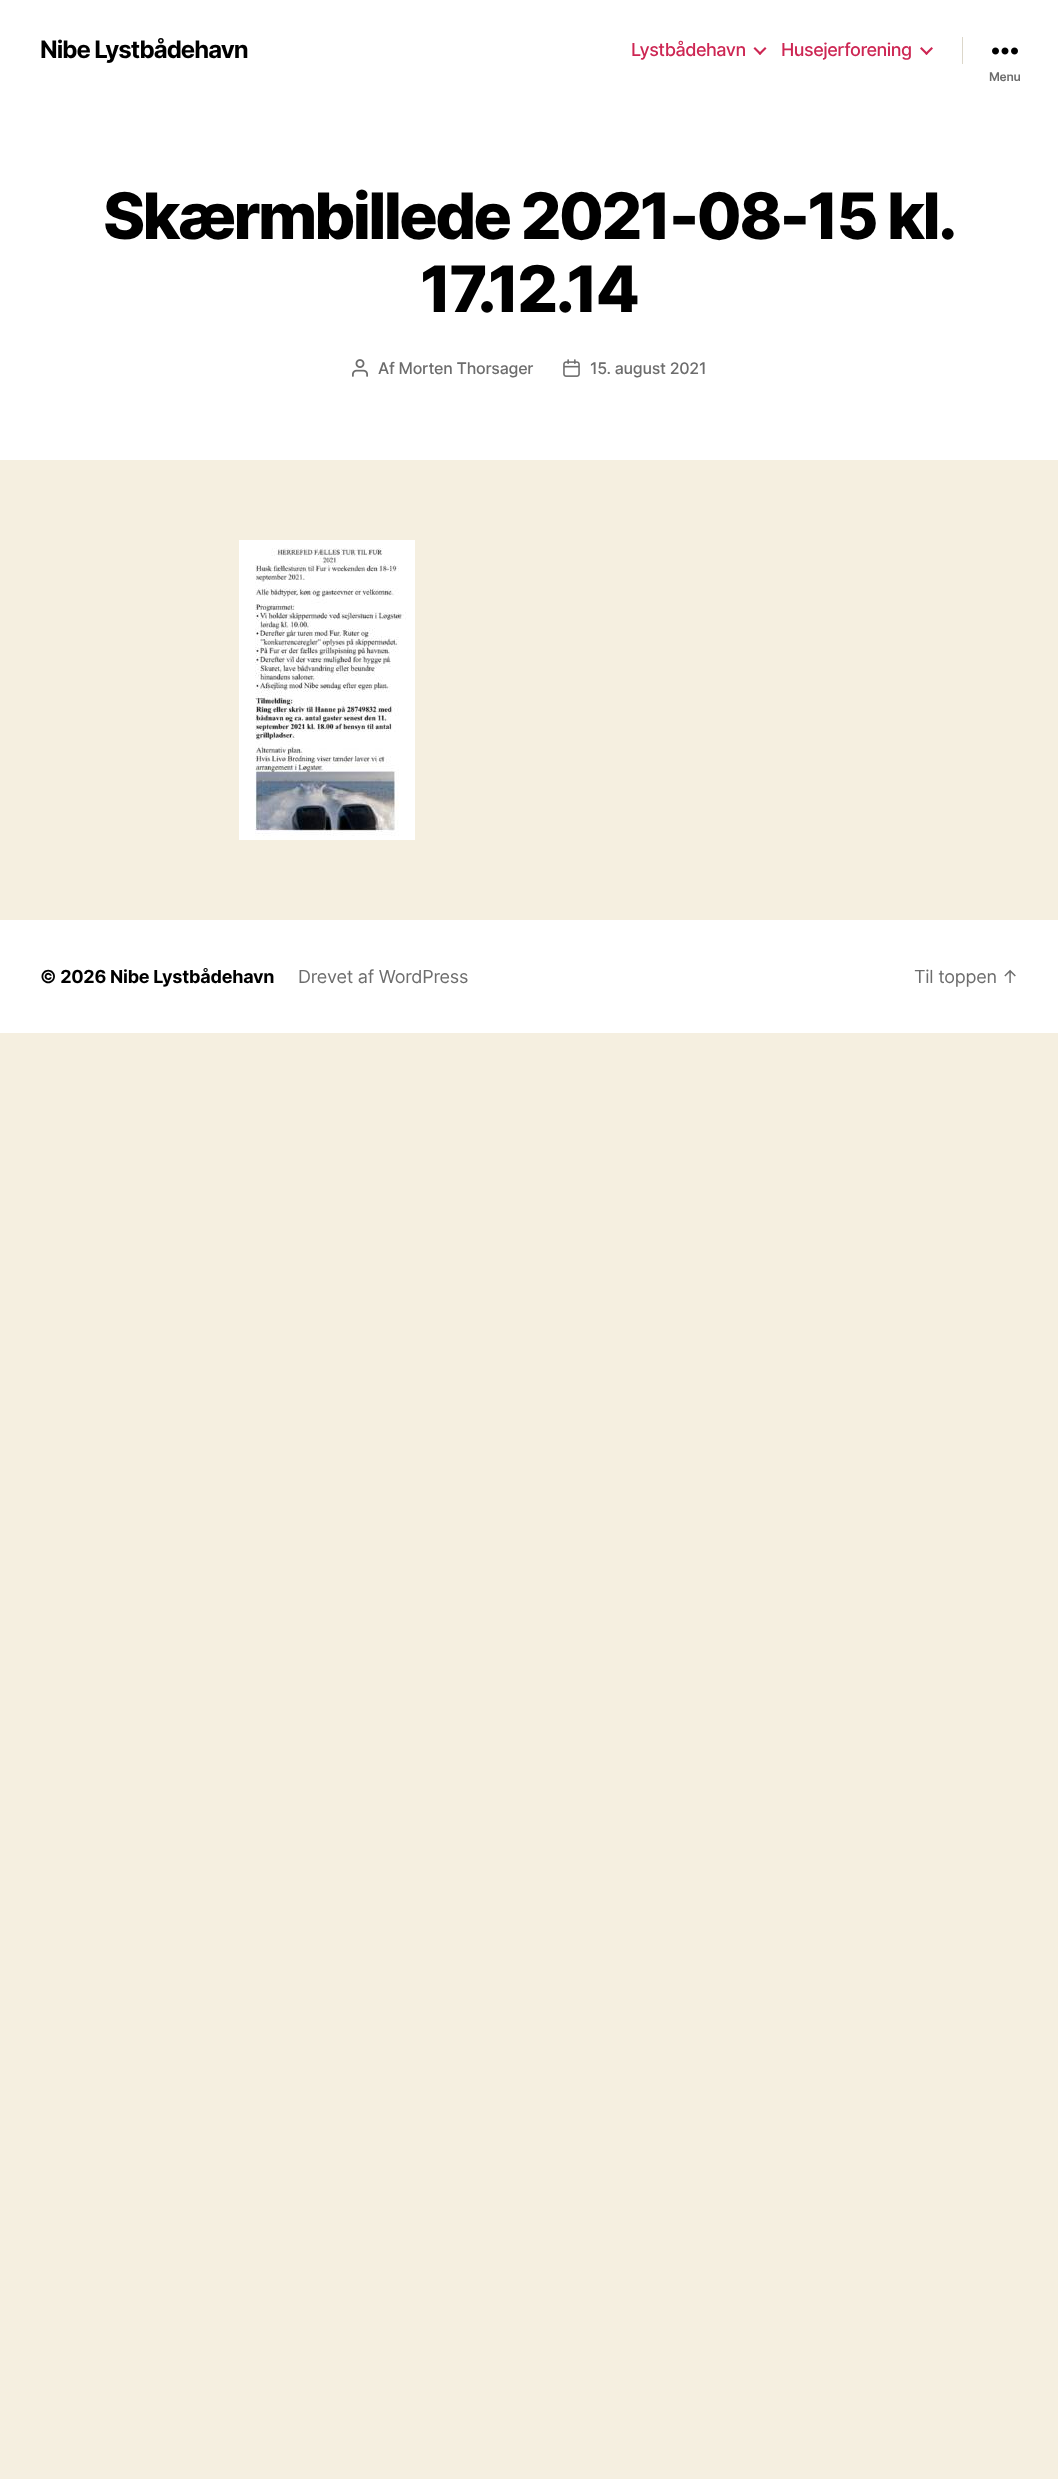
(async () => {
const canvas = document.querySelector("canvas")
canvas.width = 1058
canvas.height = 2479
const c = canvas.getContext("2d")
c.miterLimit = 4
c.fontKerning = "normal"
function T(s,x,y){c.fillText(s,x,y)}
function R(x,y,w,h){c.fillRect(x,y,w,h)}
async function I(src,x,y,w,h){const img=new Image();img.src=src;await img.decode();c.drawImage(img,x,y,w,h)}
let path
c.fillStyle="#f5efe0"
R(0,0,1058,2479)
c.fillStyle="#fff"
R(0,0,1058,460)
c.letterSpacing="-1px"
c.font="bold 24px Inter"
c.fillStyle="#000"
T("Nibe Lystbådehavn",40,58)
c.letterSpacing="-0.5px"
c.font="500 18px Inter"
c.fillStyle="#cd2653"
T("Lystbådehavn",631,56)
path = new Path2D("M753.5 48.5l1.5-1.5l6.5 6.5l-1.5 1.5z")
c.fill(path)
path = new Path2D("M758.5 53.5l6.5-6.5l1.5 1.5l-6.5 6.5z")
c.fill(path)
T("Husejerforening",781,56)
path = new Path2D("M920 48.5l1.5-1.5l6.5 6.5l-1.5 1.5z")
c.fill(path)
path = new Path2D("M925 53.5l6.5-6.5l1.5 1.5l-6.5 6.5z")
c.fill(path)
c.fillStyle="#dcd7ca"
R(962,37,1,27)
await I("1.png",992,47,26,8)
c.letterSpacing="-0.25px"
c.font="600 12px Inter"
c.fillStyle="#6d6d6d"
T("Menu",989,81)
c.letterSpacing="-2.65px"
c.font="800 64px Inter"
c.fillStyle="#000"
T("Skærmbillede 2021-08-15 kl.",103,239)
T("17.12.14",420,312)
await I("2.png",352,359,16,18)
c.letterSpacing="-0.25px"
c.font="500 16px Inter"
c.fillStyle="#6d6d6d"
T("Af Morten Thorsager",378,374)
await I("3.png",563,359,17,18)
T("15. august 2021",590,374)
await I("4.png",239,540,176,300)
c.fillStyle="#fff"
R(0,920,1058,113)
c.font="bold 18px Inter"
c.fillStyle="#000"
T("© 2026 Nibe Lystbådehavn",40,983)
c.font="18px Inter"
c.fillStyle="#6d6d6d"
T("Drevet af WordPress",298,983)
T("Til toppen ↑",914,983)
})()
